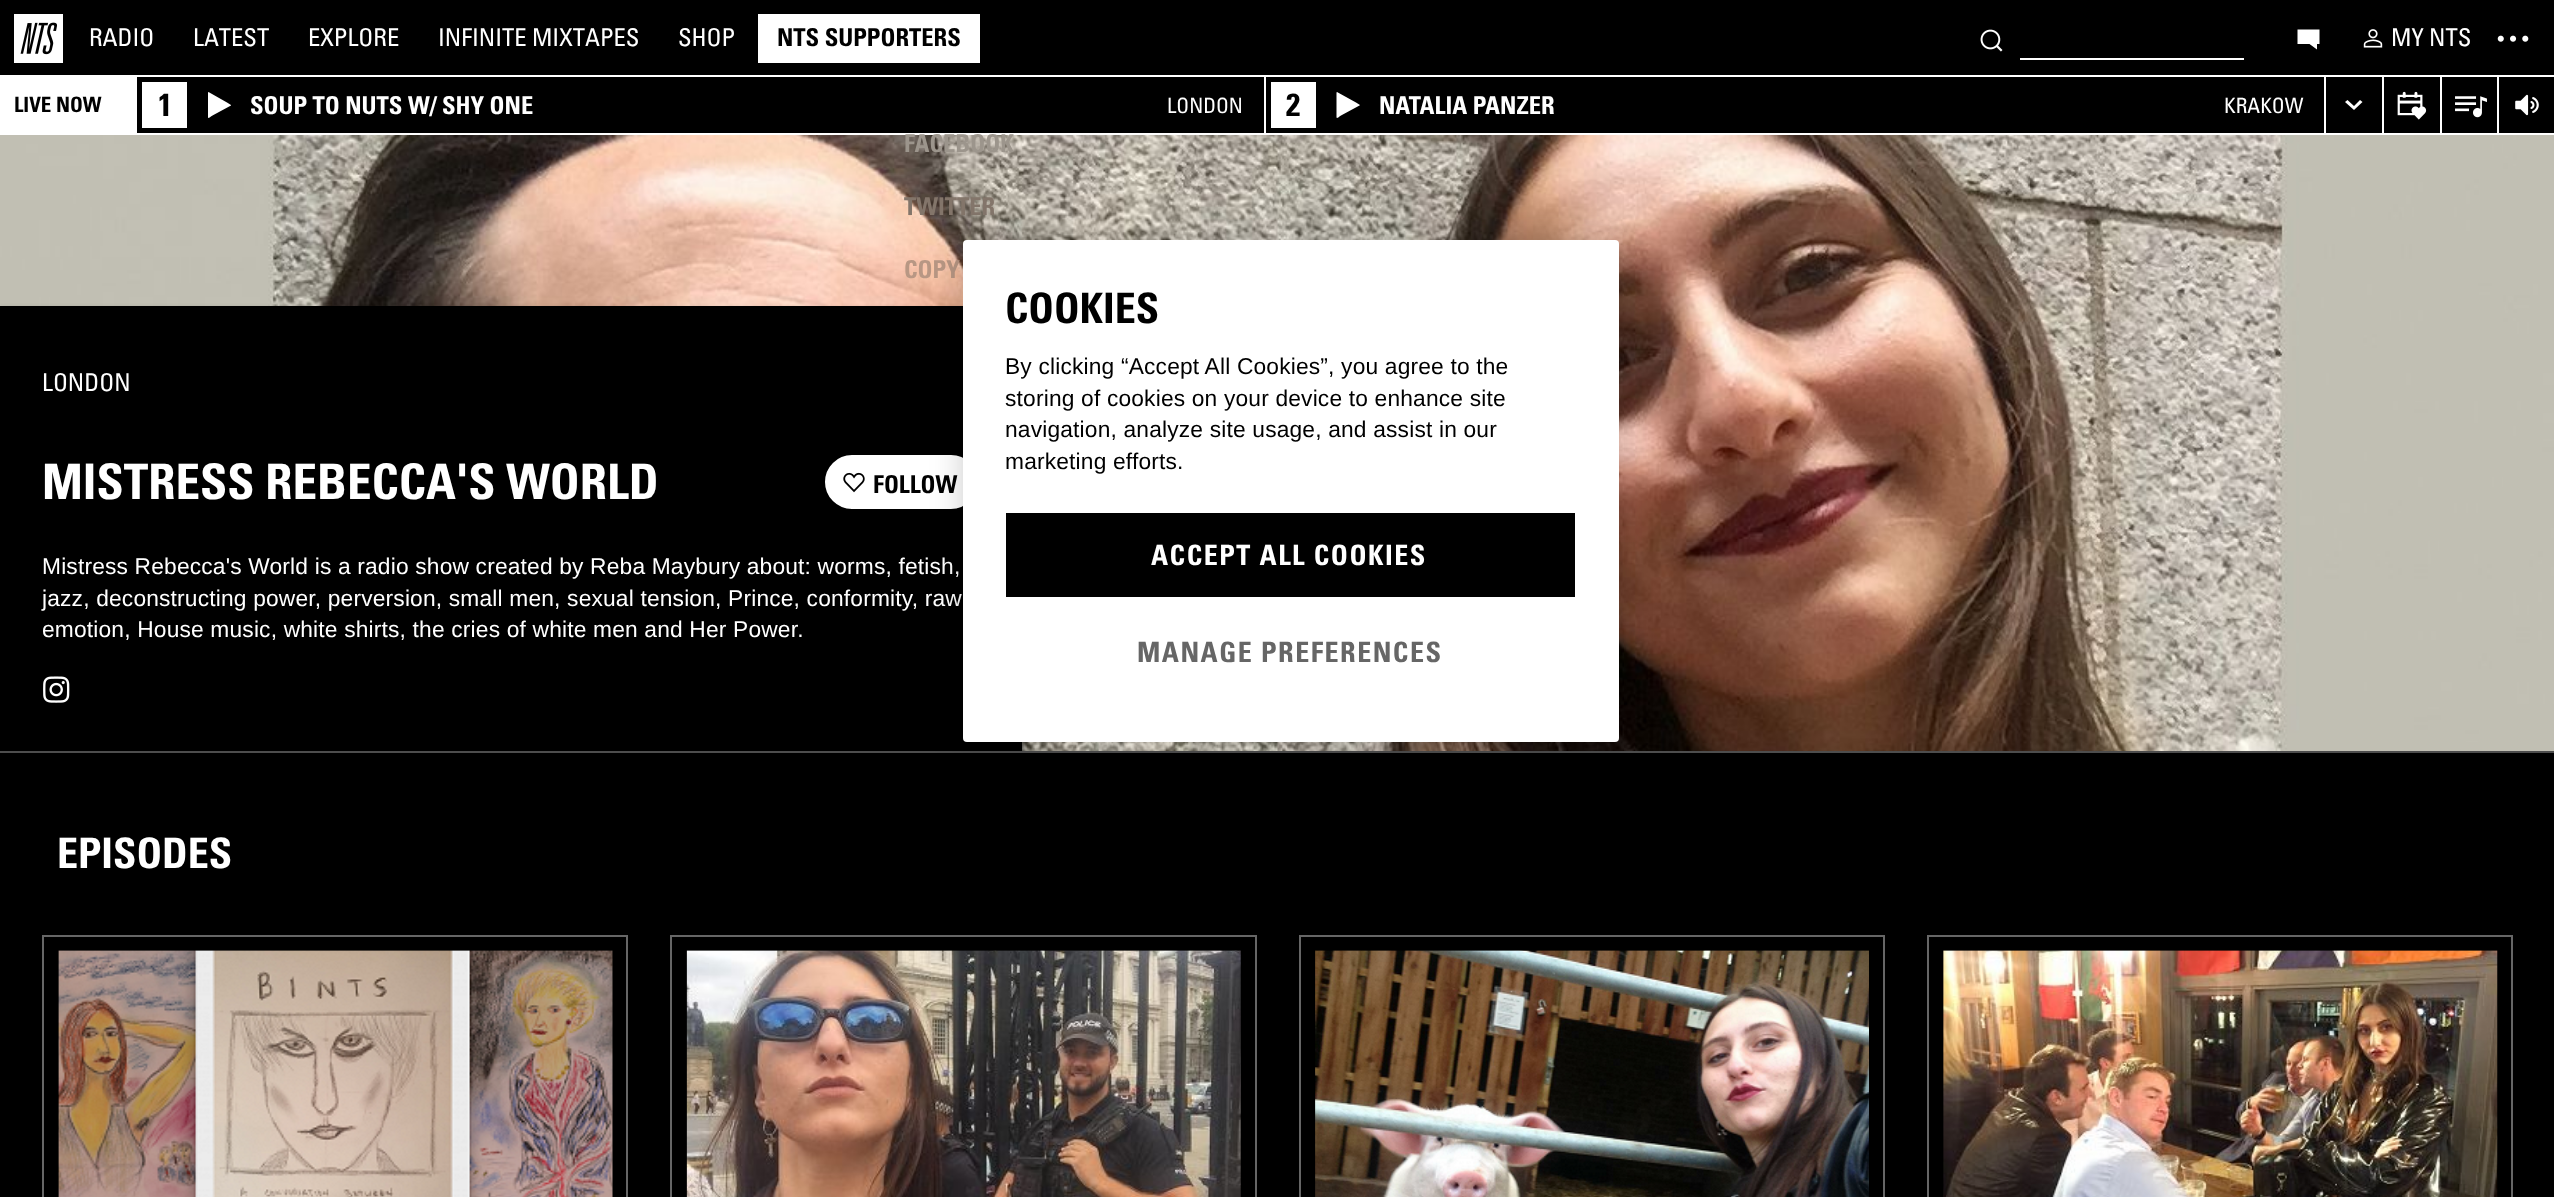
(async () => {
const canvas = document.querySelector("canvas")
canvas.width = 2554
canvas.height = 1197
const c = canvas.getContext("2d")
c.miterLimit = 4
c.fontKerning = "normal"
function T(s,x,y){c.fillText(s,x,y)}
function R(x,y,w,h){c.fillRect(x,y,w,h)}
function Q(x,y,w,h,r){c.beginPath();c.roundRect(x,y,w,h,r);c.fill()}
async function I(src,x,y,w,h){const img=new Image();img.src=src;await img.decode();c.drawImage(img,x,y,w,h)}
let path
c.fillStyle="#000"
R(0,0,2554,1197)
c.fillStyle="#fff"
R(0,75,2554,2)
await I("1.png",14,14,49,49)
c.font="24.5px 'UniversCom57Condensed'"
T("RADIO",89,46)
T("LATEST",193,46)
T("EXPLORE",308,46)
T("INFINITE MIXTAPES",438,46)
T("SHOP",678,46)
R(758,14,222,49)
c.font="bold 24.5px Univers"
c.fillStyle="#000"
T("NTS SUPPORTERS",777,46)
await I("2.png",1980,29,23,23)
c.fillStyle="#fff"
R(2020,58,224,2)
path = new Path2D("M2319.5 44h-2.5v5.5l-7.5-5.5h-12v-14.5h22z")
c.fill(path)
await I("3.png",2363,29,20,19)
c.font="24.5px 'UniversCom57Condensed'"
T("MY NTS",2391,46)
await I("4.png",2497,35,32,7)
R(0,133,2554,2)
R(0,77,137,56)
c.font="bold 21px Univers"
c.fillStyle="#000"
T("LIVE NOW",14,112)
c.fillStyle="#fff"
R(142,82,45,46)
c.font="bold 32px Univers"
c.fillStyle="#000"
T("1",158,116)
c.fillStyle="#fff"
path = new Path2D("M231 105.5l-18.5 10c-3.5 2.5-4.5 3-4.5 2v-25l.5-.5l18.5 10.5l4 2.5z")
c.fill(path)
c.font="bold 24.5px Univers"
T("SOUP TO NUTS W/ SHY ONE",250,114)
c.font="21px 'UniversCom57Condensed'"
T("LONDON",1167,113)
R(1264,77,2,56)
R(1271,82,45,46)
c.font="bold 32px Univers"
c.fillStyle="#000"
T("2",1286,116)
c.fillStyle="#fff"
path = new Path2D("M1359.5 105.5l-18.5 10c-3.5 2.5-4 3-4.5 2v-25l.5-.5l19 10.5l4 2.5z")
c.fill(path)
c.font="bold 24.5px Univers"
T("NATALIA PANZER",1379,114)
c.font="21px 'UniversCom57Condensed'"
T("KRAKOW",2224,113)
R(2324,77,2,58)
path = new Path2D("M2360 100l2.5 2l-8.5 8l-9-8l2.5-2l6.5 6z")
c.fill(path)
R(2382,77,2,58)
await I("5.png",2397,91,30,29)
R(2440,77,2,58)
await I("6.png",2455,96,32,22)
R(2497,77,2,58)
await I("7.png",2515,94,24,22)
await I("10.png",0,135,2554,616)
c.fillStyle="#000"
c.filter="blur(4.5px)"
c.beginPath()
c.rect(0,313,1022,445)
c.fill()
c.filter="none"
R(0,306,1022,445)
c.font="bold 24.5px Univers"
c.fillStyle="#9c958c"
T("FACEBOOK",904,152)
c.fillStyle="#83756a"
T("TWITTER",904,215)
c.fillStyle="#b89784"
T("COPY",904,278)
c.font="24.5px 'UniversCom57Condensed'"
c.fillStyle="#fff"
T("LONDON",42,391)
c.font="bold 49px Univers"
T("MISTRESS REBECCA'S WORLD",42,499)
c.beginPath()
c.roundRect(824,454,155,56,28)
c.fill()
c.strokeStyle="#000"
c.lineWidth=2
c.stroke()
await I("8.png",843,472,22,21)
c.font="bold 24.5px Univers"
c.fillStyle="#000"
T("FOLLOW",873,493)
c.letterSpacing="0.18px"
c.font="22.75px Liberation Sans"
c.fillStyle="#fff"
T("Mistress Rebecca's World is a radio show created by Reba Maybury about: worms, fetish,",42,574)
T("jazz, deconstructing power, perversion, small men, sexual tension, Prince, conformity, raw",42,606)
T("emotion, House music, white shirts, the cries of white men and Her Power.",42,637)
await I("9.png",43,676,27,27)
c.fillStyle="#4d4d4d"
R(0,751,2554,2)
c.letterSpacing="0px"
c.font="bold 42px Univers"
c.fillStyle="#fff"
T("EPISODES",57,868)
c.strokeStyle="#666"
c.strokeRect(43,936,584,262)
await I("11.png",58,950,555,247)
c.strokeRect(671,936,585,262)
await I("12.png",686,950,555,247)
c.strokeRect(1300,936,584,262)
await I("13.png",1315,950,554,247)
c.strokeRect(1928,936,584,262)
await I("14.png",1943,950,555,247)
c.fillStyle="#00000033"
c.filter="blur(16px)"
c.beginPath()
c.roundRect(963,240,656,502,4)
c.fill()
c.filter="none"
c.fillStyle="#fff"
Q(963,240,656,502,4)
c.fillStyle="#000"
T("COOKIES",1005,323)
c.letterSpacing="0.18px"
c.font="22.75px Liberation Sans"
T("By clicking “Accept All Cookies”, you agree to the",1005,374)
T("storing of cookies on your device to enhance site",1005,406)
T("navigation, analyze site usage, and assist in our",1005,437)
T("marketing efforts.",1005,469)
R(1006,513,569,84)
c.letterSpacing="1.5px"
c.font="bold 28px Univers"
c.fillStyle="#fff"
T("ACCEPT ALL COOKIES",1151,565)
c.fillStyle="#666"
T("MANAGE PREFERENCES",1137,662)
})()
